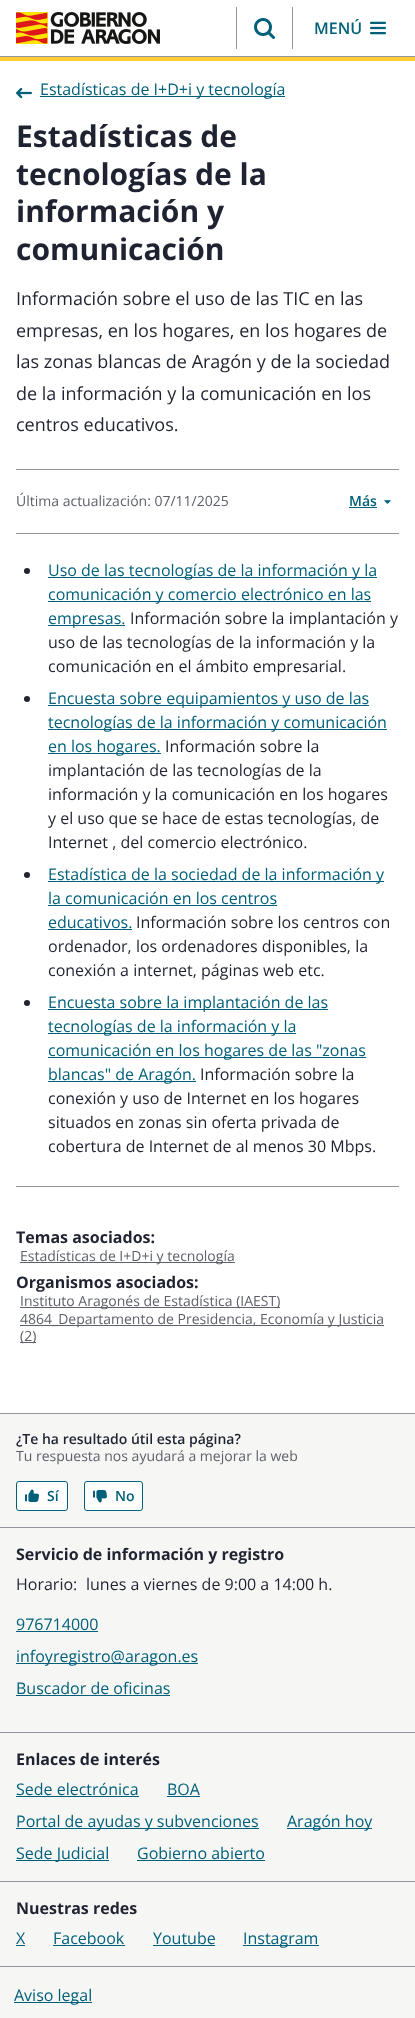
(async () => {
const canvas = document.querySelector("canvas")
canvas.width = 415
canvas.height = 2018
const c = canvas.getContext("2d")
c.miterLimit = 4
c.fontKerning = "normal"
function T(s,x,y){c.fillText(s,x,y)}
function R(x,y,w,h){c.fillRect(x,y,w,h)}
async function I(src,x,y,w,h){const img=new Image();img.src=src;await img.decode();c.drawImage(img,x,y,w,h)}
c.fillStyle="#fff"
R(0,0,415,2018)
c.fillStyle="#92949b"
R(0,56,415,1)
await I("1.png",16,12,144,32)
R(236,7,1,42)
await I("2.png",254,18,21,21)
R(292,7,1,42)
c.font="600 16px Open Sans"
c.fillStyle="#00607a"
T("MENÚ",314,34)
await I("3.png",370,21,16,14)
c.fillStyle="#fdcb33"
R(0,57,415,4)
await I("4.png",16,87,16,12)
c.fillStyle="#00607a"
R(40,96,245,1)
c.font="16px Open Sans"
T("Estadísticas de I+D+i y tecnología",40,95)
c.font="bold 30px Open Sans"
c.fillStyle="#1f2331"
T("Estadísticas de",16,147)
T("tecnologías de la",16,185)
T("información y",16,222)
T("comunicación",16,260)
c.font="18px Open Sans"
T("Información sobre el uso de las TIC en las",16,305)
T("empresas, en los hogares, en los hogares de",16,337)
T("las zonas blancas de Aragón y de la sociedad",16,368)
T("de la información y la comunicación en los",16,400)
T("centros educativos.",16,431)
c.fillStyle="#92949b"
R(16,469,383,1)
R(16,533,383,1)
c.font="14px Open Sans"
c.fillStyle="#5e616b"
T("Última actualización: 07/11/2025",16,506)
c.font="600 14px Open Sans"
c.fillStyle="#00607a"
T("Más",349,506)
R(349,507,28,1)
await I("5.png",384,500,7,4)
c.fillStyle="#1f2331"
c.beginPath()
c.arc(27,571,3,0,7)
c.fill()
c.fillStyle="#00607a"
R(48,577,329,1)
c.font="16px Open Sans"
T("Uso de las tecnologías de la información y la",48,576)
R(48,601,323,1)
T("comunicación y comercio electrónico en las",48,600)
R(48,625,77,1)
T("empresas.",48,624)
c.fillStyle="#1f2331"
T("Información sobre la implantación y",130,624)
T("uso de las tecnologías de la información y la",48,648)
T("comunicación en el ámbito empresarial.",48,672)
c.beginPath()
c.arc(27,699,3,0,7)
c.fill()
c.fillStyle="#00607a"
R(48,705,321,1)
T("Encuesta sobre equipamientos y uso de las",48,704)
R(48,729,339,1)
T("tecnologías de la información y comunicación",48,728)
R(48,753,113,1)
T("en los hogares.",48,752)
c.fillStyle="#1f2331"
T("Información sobre la",165,752)
T("implantación de las tecnologías de la",48,776)
T("información y la comunicación en los hogares",48,800)
T("y el uso que se hace de estas tecnologías, de",48,824)
T("Internet , del comercio electrónico.",48,848)
c.beginPath()
c.arc(27,875,3,0,7)
c.fill()
c.fillStyle="#00607a"
R(48,881,336,1)
T("Estadística de la sociedad de la información y",48,880)
T("la comunicación en los centros",48,904)
R(48,905,229,1)
T("educativos.",48,928)
R(48,929,84,1)
c.fillStyle="#1f2331"
T("Información sobre los centros con",136,928)
T("ordenador, los ordenadores disponibles, la",48,952)
T("conexión a internet, páginas web etc.",48,976)
c.beginPath()
c.arc(27,1003,3,0,7)
c.fill()
c.fillStyle="#00607a"
R(48,1009,280,1)
T("Encuesta sobre la implantación de las",48,1008)
R(48,1033,248,1)
T("tecnologías de la información y la",48,1032)
R(48,1057,318,1)
T("comunicación en los hogares de las \"zonas",48,1056)
R(48,1081,148,1)
T("blancas\" de Aragón.",48,1080)
c.fillStyle="#1f2331"
T("Información sobre la",200,1080)
T("conexión y uso de Internet en los hogares",48,1104)
T("situados en zonas sin oferta privada de",48,1128)
T("cobertura de Internet de al menos 30 Mbps.",48,1152)
c.fillStyle="#92949b"
R(16,1186,383,1)
c.font="bold 16px Open Sans"
c.fillStyle="#1f2331"
T("Temas asociados:",16,1243)
c.fillStyle="#5e616b"
R(20,1262,215,1)
c.font="14px Open Sans"
T("Estadísticas de I+D+i y tecnología",20,1261)
c.font="bold 16px Open Sans"
c.fillStyle="#1f2331"
T("Organismos asociados:",16,1288)
c.fillStyle="#5e616b"
R(20,1307,260,1)
c.font="14px Open Sans"
T("Instituto Aragonés de Estadística (IAEST)",20,1306)
R(20,1325,364,1)
T("4864_Departamento de Presidencia, Economía y Justicia",20,1324)
R(20,1342,16,1)
T("(2)",20,1341)
c.fillStyle="#f6f6f5"
R(0,1414,415,113)
c.fillStyle="#92949b"
R(0,1413,415,1)
c.font="600 14px Open Sans"
c.fillStyle="#1f2331"
T("¿Te ha resultado útil esta página?",16,1444)
c.font="14px Open Sans"
c.fillStyle="#5e616b"
T("Tu respuesta nos ayudará a mejorar la web",16,1461)
c.fillStyle="#fff"
c.beginPath()
c.roundRect(16.5,1481.5,51,29,2.5)
c.fill()
c.strokeStyle="#00607a"
c.stroke()
await I("6.png",25,1489,14,13)
c.font="600 14px Open Sans"
c.fillStyle="#00607a"
T("Sí",47,1501)
c.fillStyle="#fff"
c.beginPath()
c.roundRect(84.5,1481.5,58,29,2.5)
c.fill()
c.stroke()
await I("7.png",93,1490,14,13)
c.fillStyle="#00607a"
T("No",115,1501)
c.fillStyle="#f6f6f5"
R(0,1528,415,204)
c.fillStyle="#92949b"
R(0,1527,415,1)
c.font="bold 16px Open Sans"
c.fillStyle="#1f2331"
T("Servicio de información y registro",16,1560)
c.font="16px Open Sans"
T("Horario:",16,1590)
T("lunes a viernes de 9:00 a 14:00 h.",86,1590)
c.fillStyle="#00607a"
T("976714000",16,1630)
R(16,1631,82,1)
R(16,1663,182,1)
T("infoyregistro@aragon.es",16,1662)
T("Buscador de oficinas",16,1694)
R(16,1695,154,1)
c.fillStyle="#f6f6f5"
R(0,1733,415,148)
c.fillStyle="#92949b"
R(0,1732,415,1)
c.font="bold 16px Open Sans"
c.fillStyle="#1f2331"
T("Enlaces de interés",16,1765)
c.font="16px Open Sans"
c.fillStyle="#00607a"
T("Sede electrónica",16,1795)
R(16,1796,123,1)
T("BOA",167,1795)
R(167,1796,33,1)
R(16,1828,243,1)
T("Portal de ayudas y subvenciones",16,1827)
R(287,1828,85,1)
T("Aragón hoy",287,1827)
R(16,1860,93,1)
T("Sede Judicial",16,1859)
T("Gobierno abierto",137,1859)
R(137,1860,128,1)
c.fillStyle="#f6f6f5"
R(0,1882,415,84)
c.fillStyle="#92949b"
R(0,1881,415,1)
c.font="bold 16px Open Sans"
c.fillStyle="#1f2331"
T("Nuestras redes",16,1914)
c.font="16px Open Sans"
c.fillStyle="#00607a"
T("X",16,1944)
R(16,1945,9,1)
T("Facebook",53,1944)
R(53,1945,72,1)
T("Youtube",153,1944)
R(153,1945,62,1)
R(243,1945,76,1)
T("Instagram",243,1944)
c.fillStyle="#f6f6f5"
R(0,1967,415,51)
c.fillStyle="#92949b"
R(0,1966,415,1)
c.fillStyle="#00607a"
R(14,2002,78,1)
T("Aviso legal",14,2001)
})()
